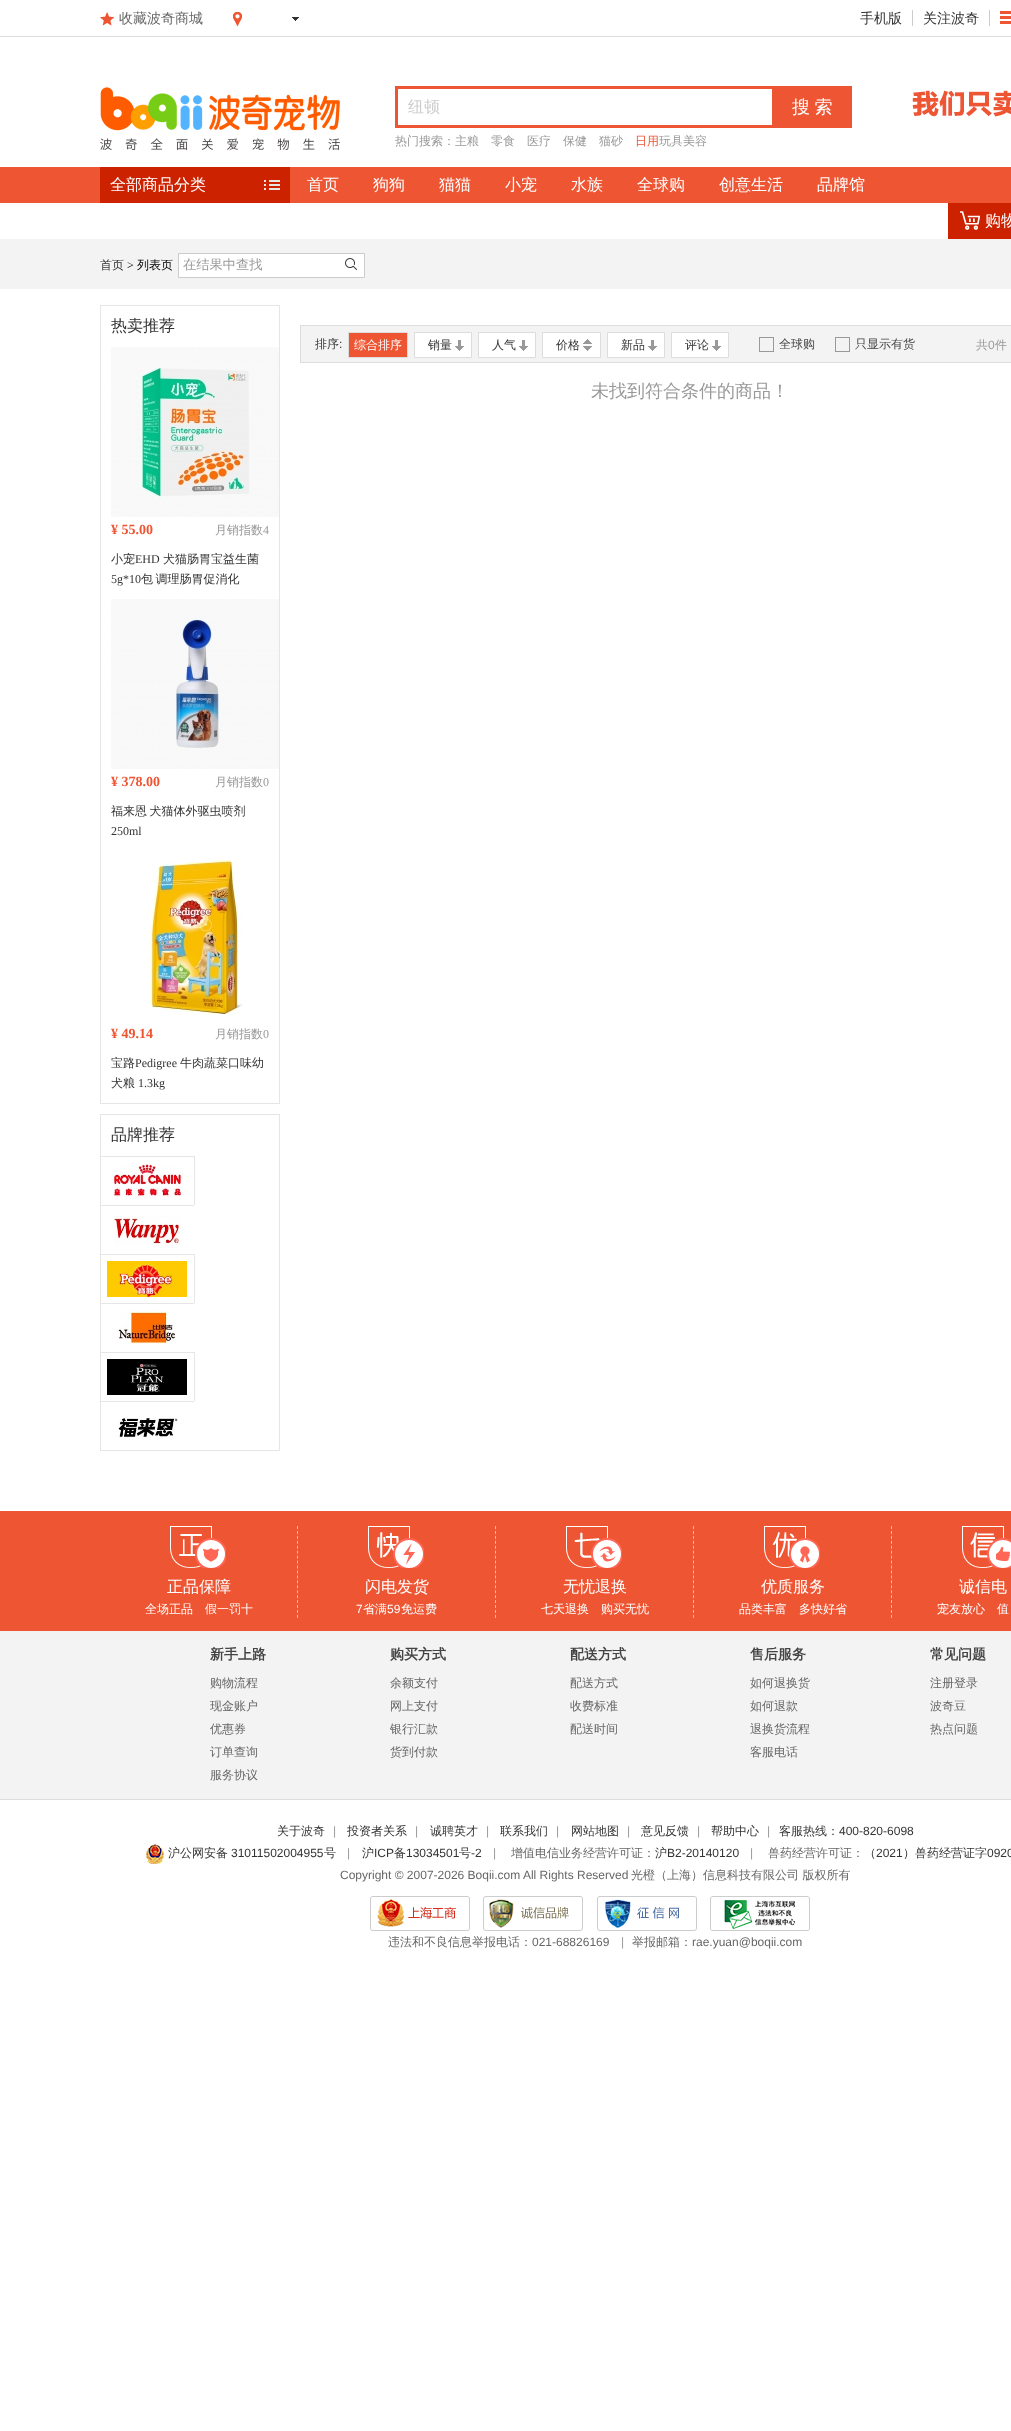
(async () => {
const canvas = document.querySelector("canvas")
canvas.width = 1011
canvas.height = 2431
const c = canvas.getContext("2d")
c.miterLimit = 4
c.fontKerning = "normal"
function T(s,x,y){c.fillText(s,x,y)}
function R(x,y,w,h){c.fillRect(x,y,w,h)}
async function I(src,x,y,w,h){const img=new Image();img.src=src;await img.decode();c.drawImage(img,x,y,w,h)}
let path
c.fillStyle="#fff"
R(0,0,1011,2431)
c.fillStyle="#ddd"
R(0,36,1011,1)
await I("1.png",100,12,14,14)
c.font="500 14px WenQuanYi Zen Hei"
c.fillStyle="#666"
T("收藏波奇商城",119,23)
await I("2.png",233,12,9,15)
await I("3.png",292,17,7,4)
c.fillStyle="#ccc"
R(912,10,1,16)
c.fillStyle="#333"
T("手机版",860,23)
c.fillStyle="#ccc"
R(989,10,1,16)
c.fillStyle="#333"
T("关注波奇",923,23)
await I("4.png",1000,11,11,13)
await I("5.png",100,87,240,63)
c.fillStyle="#e53"
R(395,86,377,3)
R(395,125,377,3)
R(395,86,3,42)
c.font="500 16px WenQuanYi Zen Hei"
c.fillStyle="#ccc"
T("纽顿",408,112)
c.fillStyle="#e53"
R(772,86,80,42)
c.wordSpacing="-1px"
c.font="500 18px WenQuanYi Zen Hei"
c.fillStyle="#fff"
T("搜 索",792,113)
c.wordSpacing="0px"
c.font="500 12px WenQuanYi Zen Hei"
c.fillStyle="#999"
T("热门搜索：主粮",395,145)
T("零食",491,145)
T("医疗",527,145)
T("保健",563,145)
T("猫砂",599,145)
c.fillStyle="#e53"
T("日用",635,145)
c.fillStyle="#999"
T("玩具美容",659,145)
await I("6.png",912,90,99,27)
c.fillStyle="#e53"
R(0,167,1011,36)
c.fillStyle="#c20"
R(100,167,190,36)
c.font="500 16px WenQuanYi Zen Hei"
c.fillStyle="#fff"
T("全部商品分类",110,190)
await I("7.png",264,180,16,10)
T("首页",307,190)
T("狗狗",373,190)
T("猫猫",439,190)
T("小宠",505,190)
T("水族",571,190)
T("全球购",637,190)
T("创意生活",719,190)
T("品牌馆",817,190)
c.fillStyle="#c20"
R(948,203,63,36)
await I("8.png",960,211,20,19)
c.fillStyle="#fff"
T("购物",985,226)
c.fillStyle="#f3f3f3"
R(0,239,1011,50)
c.font="500 12px WenQuanYi Zen Hei"
c.fillStyle="#333"
T("首页",100,269)
c.font="12px Liberation Serif"
c.fillStyle="#000"
T(">",127,269)
c.font="500 12px WenQuanYi Zen Hei"
T("列表页",137,269)
c.fillStyle="#fff"
c.beginPath()
c.rect(178.5,253.5,186,24)
c.fill()
c.strokeStyle="#ccc"
c.stroke()
c.font="500 13.25px WenQuanYi Zen Hei"
c.fillStyle="#999"
T("在结果中查找",183,269)
await I("9.png",345,258,12,12)
c.strokeStyle="#e6e6e6"
c.strokeRect(100.5,305.5,179,798)
c.font="500 16px WenQuanYi Zen Hei"
c.fillStyle="#333"
T("热卖推荐",111,331)
await I("10.png",111,347,168,170)
c.font="bold 14px Liberation Serif"
c.fillStyle="#e53"
T("¥ 55.00",111,534)
c.font="500 12px WenQuanYi Zen Hei"
c.fillStyle="#999"
T("月销指数",215,534)
c.font="12px Liberation Serif"
T("4",263,534)
c.font="500 12px WenQuanYi Zen Hei"
c.fillStyle="#333"
T("小宠",111,563)
c.font="12px Liberation Serif"
T("EHD",135,563)
c.font="500 12px WenQuanYi Zen Hei"
T("犬猫肠胃宝益生菌",163,563)
c.font="12px Liberation Serif"
T("5g*10",111,583)
c.wordSpacing="-1px"
c.font="500 12px WenQuanYi Zen Hei"
T("包 调理肠胃促消化",141,583)
await I("11.png",111,599,168,170)
c.wordSpacing="0px"
c.font="bold 14px Liberation Serif"
c.fillStyle="#e53"
T("¥ 378.00",111,786)
c.font="500 12px WenQuanYi Zen Hei"
c.fillStyle="#999"
T("月销指数",215,786)
c.font="12px Liberation Serif"
T("0",263,786)
c.wordSpacing="-1px"
c.font="500 12px WenQuanYi Zen Hei"
c.fillStyle="#333"
T("福来恩 犬猫体外驱虫喷剂",111,815)
c.wordSpacing="0px"
c.font="12px Liberation Serif"
T("250ml",111,835)
await I("12.png",150,860,93,155)
c.font="bold 14px Liberation Serif"
c.fillStyle="#e53"
T("¥ 49.14",111,1038)
c.font="500 12px WenQuanYi Zen Hei"
c.fillStyle="#999"
T("月销指数",215,1038)
c.font="12px Liberation Serif"
T("0",263,1038)
c.font="500 12px WenQuanYi Zen Hei"
c.fillStyle="#333"
T("宝路",111,1067)
c.font="12px Liberation Serif"
T("Pedigree",135,1067)
c.font="500 12px WenQuanYi Zen Hei"
T("牛肉蔬菜口味幼",180,1067)
T("犬粮",111,1087)
c.font="12px Liberation Serif"
T("1.3kg",138,1087)
c.strokeRect(100.5,1114.5,179,336)
c.font="500 16px WenQuanYi Zen Hei"
T("品牌推荐",111,1140)
c.fillStyle="#e6e6e6"
R(101,1156,94,1)
R(194,1156,1,49)
await I("13.png",111,1164,72,33)
R(101,1205,93,1)
await I("14.png",114,1216,66,30)
R(101,1254,94,1)
R(194,1254,1,49)
await I("15.png",107,1261,80,36)
R(101,1303,93,1)
await I("16.png",118,1311,58,33)
R(101,1352,94,1)
R(194,1352,1,49)
await I("17.png",107,1359,80,36)
R(101,1401,93,1)
await I("18.png",118,1418,60,20)
c.fillStyle="#f3f3f3"
c.beginPath()
c.rect(300.5,325.5,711,37)
c.fill()
c.strokeStyle="#ddd"
c.stroke()
c.font="500 12px WenQuanYi Zen Hei"
c.fillStyle="#333"
T("排序",315,348)
c.font="12px Liberation Sans"
T(":",339,348)
c.fillStyle="#e53"
c.beginPath()
c.rect(348.5,332.5,59,25)
c.fill()
c.stroke()
c.font="500 12px WenQuanYi Zen Hei"
c.fillStyle="#fff"
T("综合排序",354,349)
c.beginPath()
c.rect(414.5,332.5,57,25)
c.fill()
c.stroke()
c.fillStyle="#333"
T("销量",428,349)
await I("19.png",455,340,9,11)
c.fillStyle="#fff"
c.beginPath()
c.rect(478.5,332.5,57,25)
c.fill()
c.stroke()
c.fillStyle="#333"
T("人气",492,349)
await I("19.png",519,340,9,11)
c.fillStyle="#fff"
c.beginPath()
c.rect(542.5,332.5,58,25)
c.fill()
c.stroke()
c.fillStyle="#333"
T("价格",556,349)
await I("20.png",583,339,9,12)
c.fillStyle="#fff"
c.beginPath()
c.rect(607.5,332.5,57,25)
c.fill()
c.stroke()
c.fillStyle="#333"
T("新品",621,349)
await I("19.png",648,340,9,11)
c.fillStyle="#fff"
c.beginPath()
c.rect(671.5,332.5,57,25)
c.fill()
c.stroke()
c.fillStyle="#333"
T("评论",685,349)
await I("19.png",712,340,9,11)
c.strokeStyle="#999"
c.strokeRect(759.5,337.5,14,14)
c.fillStyle="#444"
T("全球购",779,348)
c.strokeRect(835.5,337.5,14,14)
T("只显示有货",855,348)
c.fillStyle="#999"
T("共",976,349)
c.font="12px Liberation Sans"
T("0",988,349)
c.font="500 12px WenQuanYi Zen Hei"
T("件",995,349)
c.font="500 18px WenQuanYi Zen Hei"
T("未找到符合条件的商品！",591,397)
c.fillStyle="#e53"
R(0,1511,1011,120)
path = new Path2D("M297.5 1526v92")
c.strokeStyle="#ffb3aa"
c.setLineDash([3,1.94])
c.stroke(path)
await I("21.png",170,1526,56,42)
c.font="500 16px WenQuanYi Zen Hei"
c.fillStyle="#fff"
T("正品保障",167,1592)
c.font="500 12px WenQuanYi Zen Hei"
T("全场正品　假一罚十",145,1613)
path = new Path2D("M495.5 1526v92")
c.stroke(path)
await I("22.png",368,1526,56,42)
c.font="500 16px WenQuanYi Zen Hei"
T("闪电发货",365,1592)
c.font="12px Liberation Sans"
T("7",356,1613)
c.font="500 12px WenQuanYi Zen Hei"
T("省满",363,1613)
c.font="12px Liberation Sans"
T("59",387,1613)
c.font="500 12px WenQuanYi Zen Hei"
T("免运费",401,1613)
path = new Path2D("M693.5 1526v92")
c.stroke(path)
await I("23.png",566,1526,56,42)
c.font="500 16px WenQuanYi Zen Hei"
T("无忧退换",563,1592)
c.font="500 12px WenQuanYi Zen Hei"
T("七天退换　购买无忧",541,1613)
path = new Path2D("M891.5 1526v92")
c.stroke(path)
await I("24.png",764,1526,56,42)
c.font="500 16px WenQuanYi Zen Hei"
T("优质服务",761,1592)
c.font="500 12px WenQuanYi Zen Hei"
T("品类丰富　多快好省",739,1613)
await I("25.png",962,1526,49,42)
c.font="500 16px WenQuanYi Zen Hei"
T("诚信电",959,1592)
c.font="500 12px WenQuanYi Zen Hei"
T("宠友放心　值",937,1613)
c.fillStyle="#f3f3f3"
R(0,1631,1011,168)
c.font="bold 14px WenQuanYi Zen Hei"
c.fillStyle="#444"
T("新手上路",210,1659)
c.font="500 12px WenQuanYi Zen Hei"
c.fillStyle="#666"
T("购物流程",210,1687)
T("现金账户",210,1710)
T("优惠券",210,1733)
T("订单查询",210,1756)
T("服务协议",210,1779)
c.font="bold 14px WenQuanYi Zen Hei"
c.fillStyle="#444"
T("购买方式",390,1659)
c.font="500 12px WenQuanYi Zen Hei"
c.fillStyle="#666"
T("余额支付",390,1687)
T("网上支付",390,1710)
T("银行汇款",390,1733)
T("货到付款",390,1756)
c.font="bold 14px WenQuanYi Zen Hei"
c.fillStyle="#444"
T("配送方式",570,1659)
c.font="500 12px WenQuanYi Zen Hei"
c.fillStyle="#666"
T("配送方式",570,1687)
T("收费标准",570,1710)
T("配送时间",570,1733)
c.font="bold 14px WenQuanYi Zen Hei"
c.fillStyle="#444"
T("售后服务",750,1659)
c.font="500 12px WenQuanYi Zen Hei"
c.fillStyle="#666"
T("如何退换货",750,1687)
T("如何退款",750,1710)
T("退换货流程",750,1733)
T("客服电话",750,1756)
c.font="bold 14px WenQuanYi Zen Hei"
c.fillStyle="#444"
T("常见问题",930,1659)
c.font="500 12px WenQuanYi Zen Hei"
c.fillStyle="#666"
T("注册登录",930,1687)
T("波奇豆",930,1710)
T("热点问题",930,1733)
c.fillStyle="#ddd"
R(0,1799,1011,1)
c.fillStyle="#333"
T("关于波奇",277,1835)
c.font="12px Liberation Sans"
c.fillStyle="#999"
T("|",333,1835)
c.font="500 12px WenQuanYi Zen Hei"
c.fillStyle="#333"
T("投资者关系",347,1835)
c.font="12px Liberation Sans"
c.fillStyle="#999"
T("|",415,1835)
c.font="500 12px WenQuanYi Zen Hei"
c.fillStyle="#333"
T("诚聘英才",430,1835)
c.font="12px Liberation Sans"
c.fillStyle="#999"
T("|",486,1835)
c.font="500 12px WenQuanYi Zen Hei"
c.fillStyle="#333"
T("联系我们",500,1835)
c.font="12px Liberation Sans"
c.fillStyle="#999"
T("|",556,1835)
c.font="500 12px WenQuanYi Zen Hei"
c.fillStyle="#333"
T("网站地图",571,1835)
c.font="12px Liberation Sans"
c.fillStyle="#999"
T("|",627,1835)
c.font="500 12px WenQuanYi Zen Hei"
c.fillStyle="#333"
T("意见反馈",641,1835)
c.font="12px Liberation Sans"
c.fillStyle="#999"
T("|",697,1835)
c.font="500 12px WenQuanYi Zen Hei"
c.fillStyle="#333"
T("帮助中心",711,1835)
c.font="12px Liberation Sans"
c.fillStyle="#999"
T("|",767,1835)
c.font="500 12px WenQuanYi Zen Hei"
c.fillStyle="#333"
T("客服热线：",779,1835)
c.font="12px Liberation Sans"
T("400-820-6098",839,1835)
await I("26.png",146,1844,18,20)
c.font="500 12px WenQuanYi Zen Hei"
T("沪公网安备",168,1857)
c.font="12px Liberation Sans"
T("31011502004955",231,1857)
c.font="500 12px WenQuanYi Zen Hei"
T("号",324,1857)
c.font="12px Liberation Sans"
c.fillStyle="#999"
T("|",347,1857)
c.font="500 12px WenQuanYi Zen Hei"
c.fillStyle="#333"
T("沪",362,1857)
c.font="12px Liberation Sans"
T("ICP",374,1857)
c.font="500 12px WenQuanYi Zen Hei"
T("备",394,1857)
c.font="12px Liberation Sans"
T("13034501",406,1857)
c.font="500 12px WenQuanYi Zen Hei"
T("号",459,1857)
c.font="12px Liberation Sans"
T("-2",471,1857)
c.fillStyle="#999"
T("|",493,1857)
c.font="500 12px WenQuanYi Zen Hei"
c.fillStyle="#666"
T("增值电信业务经营许可证：",511,1857)
c.fillStyle="#333"
T("沪",655,1857)
c.font="12px Liberation Sans"
T("B2-20140120",667,1857)
c.fillStyle="#999"
T("|",750,1857)
c.font="500 12px WenQuanYi Zen Hei"
c.fillStyle="#666"
T("兽药经营许可证：",768,1857)
c.fillStyle="#333"
T("（",864,1857)
c.font="12px Liberation Sans"
T("2021",876,1857)
c.font="500 12px WenQuanYi Zen Hei"
T("）兽药经营证字",903,1857)
c.font="12px Liberation Sans"
T("0920",987,1857)
c.fillStyle="#666"
T("Copyright © 2007-2026 Boqii.com All Rights Reserved",340,1879)
c.font="500 12px WenQuanYi Zen Hei"
T("光橙（上海）信息科技有限公司 版权所有",631,1879)
await I("27.png",370,1896,100,35)
await I("28.png",483,1896,100,35)
await I("29.png",597,1896,100,35)
await I("30.png",710,1896,100,35)
T("违法和不良信息举报电话：",388,1946)
c.font="12px Liberation Sans"
T("021-68826169",532,1946)
c.fillStyle="#999"
T("|",621,1946)
c.font="500 12px WenQuanYi Zen Hei"
c.fillStyle="#666"
T("举报邮箱：",632,1946)
c.font="12px Liberation Sans"
T("rae.yuan@boqii.com",692,1946)
})()
